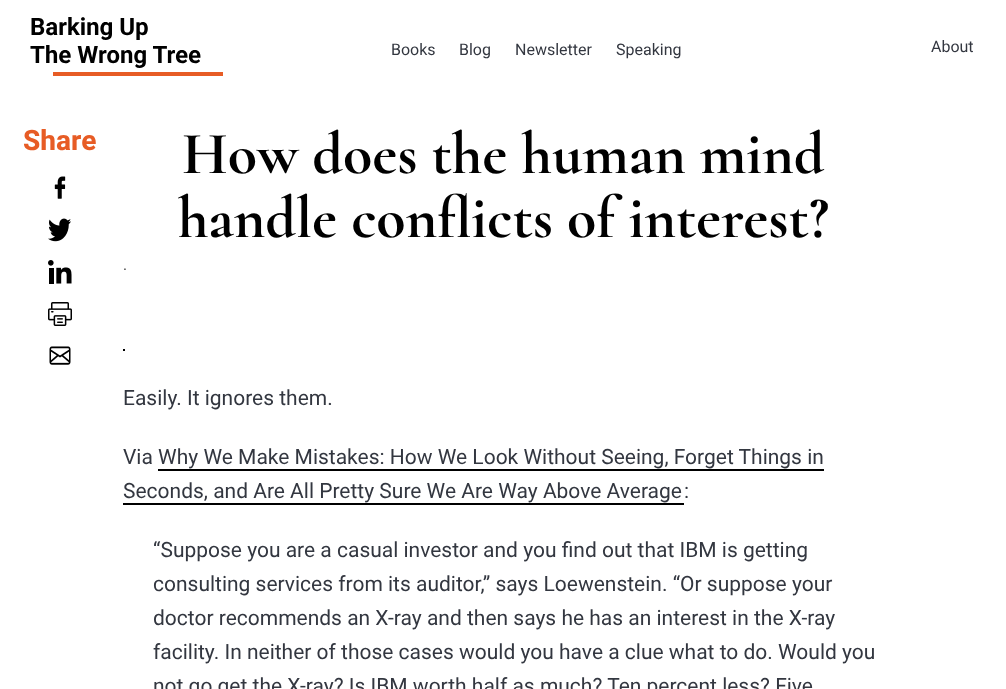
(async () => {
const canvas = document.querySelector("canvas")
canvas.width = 1006
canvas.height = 689
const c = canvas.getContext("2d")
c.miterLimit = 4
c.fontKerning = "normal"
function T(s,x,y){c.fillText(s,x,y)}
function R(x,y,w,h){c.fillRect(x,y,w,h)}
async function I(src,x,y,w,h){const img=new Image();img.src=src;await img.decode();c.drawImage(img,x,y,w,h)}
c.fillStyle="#fff"
R(0,0,1006,689)
await I("1.png",30,17,193,59)
c.font="16px Roboto"
c.fillStyle="#333740"
T("Books",391,55)
T("Blog",459,55)
T("Newsletter",515,55)
T("Speaking",616,55)
T("About",931,52)
c.font="bold 28px Heebo"
c.fillStyle="#e75c25"
T("Share",23,150)
await I("2.png",54,176,12,23)
await I("3.png",48,218,23,24)
await I("4.png",48,260,24,24)
await I("5.png",48,302,24,24)
await I("6.png",49,346,22,19)
c.font="bold 60px Cormorant"
c.fillStyle="#000"
T("How does the human mind",182,173)
T("handle conflicts of interest?",178,237)
c.font="14px Liberation Sans"
c.fillStyle="#333"
T(".",123,270)
c.fillStyle="#000"
R(123,349,2,2)
c.font="21px Roboto"
c.fillStyle="#333740"
T("Easily. It ignores them.",123,405)
T("Via Why We Make Mistakes: How We Look Without Seeing, Forget Things in",123,464)
T("Seconds, and Are All Pretty Sure We Are Way Above Average",123,498)
c.fillStyle="#000"
R(158,469,666,2)
R(123,503,561,2)
c.fillStyle="#333740"
T(":",684,498)
T("“Suppose you are a casual investor and you find out that IBM is getting",153,557)
T("consulting services from its auditor,” says Loewenstein. “Or suppose your",153,591)
T("doctor recommends an X-ray and then says he has an interest in the X-ray",153,625)
T("facility. In neither of those cases would you have a clue what to do. Would you",153,659)
T("not go get the X-ray? Is IBM worth half as much? Ten percent less? Five",153,693)
})()
